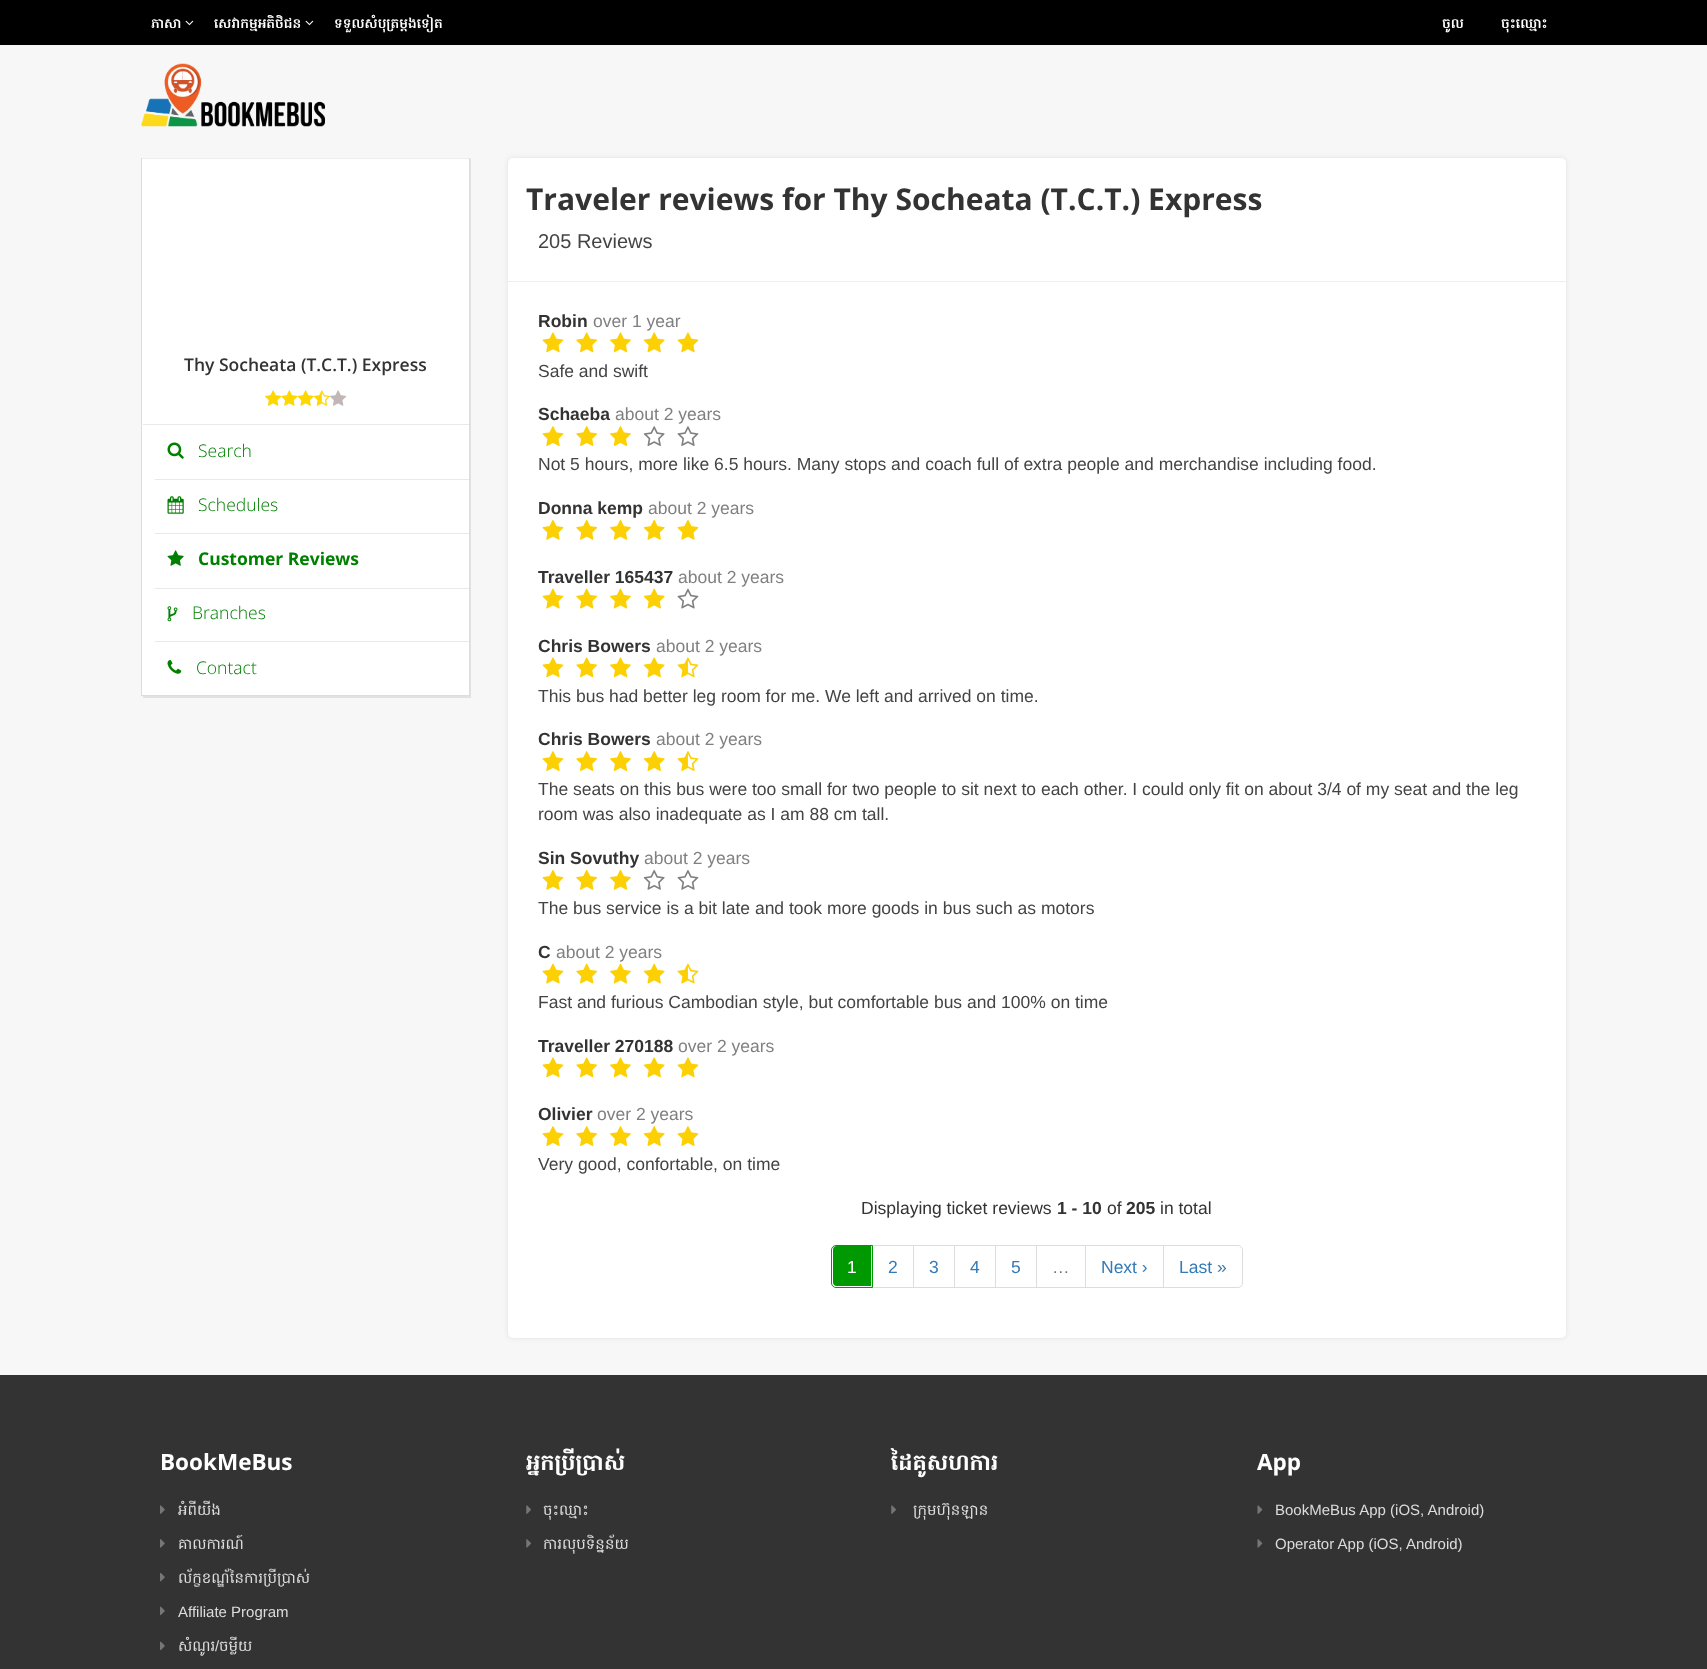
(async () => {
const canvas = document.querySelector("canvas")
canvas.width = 1707
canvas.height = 1669
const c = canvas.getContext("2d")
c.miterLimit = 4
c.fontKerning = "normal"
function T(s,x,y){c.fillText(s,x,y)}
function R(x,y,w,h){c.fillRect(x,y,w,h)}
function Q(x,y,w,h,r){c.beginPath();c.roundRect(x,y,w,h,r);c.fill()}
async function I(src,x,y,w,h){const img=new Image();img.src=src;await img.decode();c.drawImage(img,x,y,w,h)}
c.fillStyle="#f7f7f7"
R(0,0,1707,1669)
c.fillStyle="#000"
R(0,0,1707,45)
c.font="600 13.75px Hanuman"
c.fillStyle="#fff"
T("ភាសា",151,28)
await I("1.png",185,20,9,6)
T("សេវាកម្មអតិថិជន",214,28)
await I("1.png",305,20,9,6)
T("ទទួលសំបុត្រម្ដងទៀត",334,28)
T("ចូល",1442,28)
T("ចុះឈ្មោះ",1501,28)
await I("2.png",141,63,184,64)
c.fillStyle="#cccccc80"
c.filter="blur(0.5px)"
c.beginPath()
c.rect(143,159,328,539)
c.fill()
c.filter="none"
c.fillStyle="#fff"
R(142,159,327,536)
c.fillStyle="#eee"
R(141,158,329,1)
c.fillStyle="#ddd"
R(469,158,1,538)
R(141,695,329,1)
R(141,158,1,538)
c.fillStyle="#ebe8e8"
R(143,424,326,1)
c.font="600 17.5px Open Sans"
c.fillStyle="#333"
T("Thy Socheata (T.C.T.) Express",184,371)
await I("3.png",265,390,17,16)
await I("4.png",281,390,17,16)
await I("5.png",297,390,17,16)
await I("6.png",313,390,17,16)
await I("7.png",330,390,17,16)
c.fillStyle="#ebe8e8"
R(155,479,314,1)
await I("8.png",167,442,17,17)
c.font="300 17.5px Open Sans"
c.fillStyle="#008000"
T("Search",198,457)
c.fillStyle="#ebe8e8"
R(155,533,314,1)
await I("9.png",167,496,17,18)
c.fillStyle="#008000"
T("Schedules",198,511)
c.fillStyle="#ebe8e8"
R(155,588,314,1)
await I("10.png",167,550,17,16)
c.font="bold 17.5px Open Sans"
c.fillStyle="#008000"
T("Customer Reviews",198,565)
c.fillStyle="#ebe8e8"
R(155,641,314,1)
await I("11.png",167,606,11,16)
c.font="300 17.5px Open Sans"
c.fillStyle="#008000"
T("Branches",192,619)
await I("12.png",167,660,15,14)
T("Contact",196,674)
c.fillStyle="#cccccc80"
c.filter="blur(2.5px)"
c.beginPath()
c.roundRect(508,158,1058,1180,5)
c.fill()
c.filter="none"
c.fillStyle="#fff"
Q(508,158,1058,1180,5)
c.font="bold 30px Open Sans"
c.fillStyle="#333"
T("Traveler reviews for Thy Socheata (T.C.T.) Express",526,210)
c.font="20px Liberation Sans"
c.fillStyle="#444"
T("205 Reviews",538,248)
c.fillStyle="#eee"
R(508,281,1058,1)
c.font="bold 17.5px Liberation Sans"
c.fillStyle="#333"
T("Robin",538,327)
c.font="17.5px Liberation Sans"
c.fillStyle="#808080"
T("over 1 year",593,327)
await I("13.png",542,332,22,21)
await I("14.png",576,332,22,21)
await I("15.png",610,332,21,21)
await I("16.png",643,332,22,21)
await I("13.png",677,332,22,21)
c.fillStyle="#444"
T("Safe and swift",538,377)
c.font="bold 17.5px Liberation Sans"
c.fillStyle="#333"
T("Schaeba",538,420)
c.font="17.5px Liberation Sans"
c.fillStyle="#808080"
T("about 2 years",615,420)
await I("17.png",542,426,22,20)
await I("18.png",576,426,22,20)
await I("19.png",610,426,21,20)
await I("20.png",643,426,22,20)
await I("21.png",677,426,22,20)
c.fillStyle="#444"
T("Not 5 hours, more like 6.5 hours. Many stops and coach full of extra people and merchandise including food.",538,470)
c.font="bold 17.5px Liberation Sans"
c.fillStyle="#333"
T("Donna kemp",538,514)
c.font="17.5px Liberation Sans"
c.fillStyle="#808080"
T("about 2 years",648,514)
await I("22.png",542,519,22,21)
await I("23.png",576,519,22,21)
await I("24.png",610,519,21,21)
await I("25.png",643,519,22,21)
await I("22.png",677,519,22,21)
c.font="bold 17.5px Liberation Sans"
c.fillStyle="#333"
T("Traveller 165437",538,583)
c.font="17.5px Liberation Sans"
c.fillStyle="#808080"
T("about 2 years",678,583)
await I("26.png",542,588,22,21)
await I("27.png",576,588,22,21)
await I("28.png",610,588,21,21)
await I("29.png",643,588,22,21)
await I("30.png",677,588,22,21)
c.font="bold 17.5px Liberation Sans"
c.fillStyle="#333"
T("Chris Bowers",538,652)
c.font="17.5px Liberation Sans"
c.fillStyle="#808080"
T("about 2 years",656,652)
await I("13.png",542,657,22,21)
await I("14.png",576,657,22,21)
await I("15.png",610,657,21,21)
await I("16.png",643,657,22,21)
await I("31.png",677,657,22,21)
c.fillStyle="#444"
T("This bus had better leg room for me. We left and arrived on time.",538,702)
c.font="bold 17.5px Liberation Sans"
c.fillStyle="#333"
T("Chris Bowers",538,745)
c.font="17.5px Liberation Sans"
c.fillStyle="#808080"
T("about 2 years",656,745)
await I("17.png",542,751,22,20)
await I("18.png",576,751,22,20)
await I("19.png",610,751,21,20)
await I("32.png",643,751,22,20)
await I("33.png",677,751,22,20)
c.fillStyle="#444"
T("The seats on this bus were too small for two people to sit next to each other. I could only fit on about 3/4 of my seat and the leg",538,795)
T("room was also inadequate as I am 88 cm tall.",538,820)
c.font="bold 17.5px Liberation Sans"
c.fillStyle="#333"
T("Sin Sovuthy",538,864)
c.font="17.5px Liberation Sans"
c.fillStyle="#808080"
T("about 2 years",644,864)
await I("22.png",542,869,22,21)
await I("23.png",576,869,22,21)
await I("24.png",610,869,21,21)
await I("34.png",643,869,22,21)
await I("35.png",677,870,22,20)
c.fillStyle="#444"
T("The bus service is a bit late and took more goods in bus such as motors",538,914)
c.font="bold 17.5px Liberation Sans"
c.fillStyle="#333"
T("C",538,958)
c.font="17.5px Liberation Sans"
c.fillStyle="#808080"
T("about 2 years",556,958)
await I("26.png",542,963,22,21)
await I("27.png",576,963,22,21)
await I("28.png",610,963,21,21)
await I("29.png",643,963,22,21)
await I("36.png",677,963,22,21)
c.fillStyle="#444"
T("Fast and furious Cambodian style, but comfortable bus and 100% on time",538,1008)
c.font="bold 17.5px Liberation Sans"
c.fillStyle="#333"
T("Traveller 270188",538,1052)
c.font="17.5px Liberation Sans"
c.fillStyle="#808080"
T("over 2 years",678,1052)
await I("13.png",542,1057,22,21)
await I("14.png",576,1057,22,21)
await I("15.png",610,1057,21,21)
await I("16.png",643,1057,22,21)
await I("13.png",677,1057,22,21)
c.font="bold 17.5px Liberation Sans"
c.fillStyle="#333"
T("Olivier",538,1120)
c.font="17.5px Liberation Sans"
c.fillStyle="#808080"
T("over 2 years",597,1120)
await I("17.png",542,1126,22,20)
await I("18.png",576,1126,22,20)
await I("19.png",610,1126,21,20)
await I("32.png",643,1126,22,20)
await I("17.png",677,1126,22,20)
c.fillStyle="#444"
T("Very good, confortable, on time",538,1170)
c.fillStyle="#333"
T("Displaying ticket reviews",861,1214)
c.font="bold 17.5px Liberation Sans"
T("1 - 10",1057,1214)
c.font="17.5px Liberation Sans"
T("of",1107,1214)
c.font="bold 17.5px Liberation Sans"
T("205",1126,1214)
c.font="17.5px Liberation Sans"
T("in total",1160,1214)
c.fillStyle="#009901"
c.beginPath()
c.roundRect(833,1246,38,40,[4,0,0,4])
c.fill()
c.strokeStyle="#ddd"
c.strokeRect(871.5,1245.5,42,42)
c.beginPath()
c.roundRect(831.5,1245.5,41,42,[4.5,0,0,4.5])
c.strokeStyle="#009901"
c.stroke()
c.fillStyle="#fff"
T("1",847,1273)
c.fillStyle="#337ab7"
T("2",888,1273)
c.strokeStyle="#ddd"
c.strokeRect(913.5,1245.5,41,42)
T("3",929,1273)
c.strokeRect(954.5,1245.5,41,42)
T("4",970,1273)
c.strokeRect(995.5,1245.5,42,42)
T("5",1011,1273)
c.fillStyle="#fff"
R(1037,1246,1,41)
c.strokeRect(1036.5,1245.5,49,42)
c.fillStyle="#777"
T("…",1052,1273)
c.strokeRect(1085.5,1245.5,78,42)
c.fillStyle="#337ab7"
T("Next ›",1101,1273)
c.beginPath()
c.roundRect(1163.5,1245.5,79,42,[0,4.5,4.5,0])
c.stroke()
T("Last »",1179,1273)
c.fillStyle="#333"
R(0,1375,1707,294)
c.font="bold 22.5px Open Sans"
c.fillStyle="#fff"
T("BookMeBus",160,1470)
await I("37.png",160,1505,5,9)
c.font="15px Hanuman"
c.fillStyle="#dcdcdc"
T("អំពីយើង",178,1515)
await I("38.png",160,1539,5,9)
T("គោលការណ៍",178,1549)
await I("39.png",160,1573,5,9)
T("ល័ក្ខខណ្ឌ័នៃការប្រើប្រាស់",178,1583)
await I("40.png",160,1606,5,10)
c.font="15px Liberation Sans"
T("Affiliate Program",178,1617)
await I("40.png",160,1641,5,10)
c.font="15px Hanuman"
T("សំណូរ",178,1651)
c.font="15px Liberation Sans"
T("/",215,1651)
c.font="15px Hanuman"
T("ចម្លើយ",219,1651)
c.font="bold 22.5px Hanuman"
c.fillStyle="#fff"
T("អ្នកប្រើប្រាស់",526,1470)
await I("41.png",526,1505,5,9)
c.font="15px Hanuman"
c.fillStyle="#dcdcdc"
T("ចុះឈ្មោះ",543,1515)
await I("42.png",526,1539,5,9)
T("ការលុបទិន្នន័យ",543,1549)
c.font="bold 22.5px Hanuman"
c.fillStyle="#fff"
T("ដៃគូសហការ",891,1470)
await I("41.png",891,1505,5,9)
c.font="15px Hanuman"
c.fillStyle="#dcdcdc"
T("ក្រុមហ៊ុនឡាន",913,1515)
c.font="bold 22.5px Open Sans"
c.fillStyle="#fff"
T("App",1257,1470)
await I("43.png",1257,1505,6,9)
c.font="15px Liberation Sans"
c.fillStyle="#dcdcdc"
T("BookMeBus App (iOS, Android)",1275,1515)
await I("44.png",1257,1539,6,9)
T("Operator App (iOS, Android)",1275,1549)
})()
